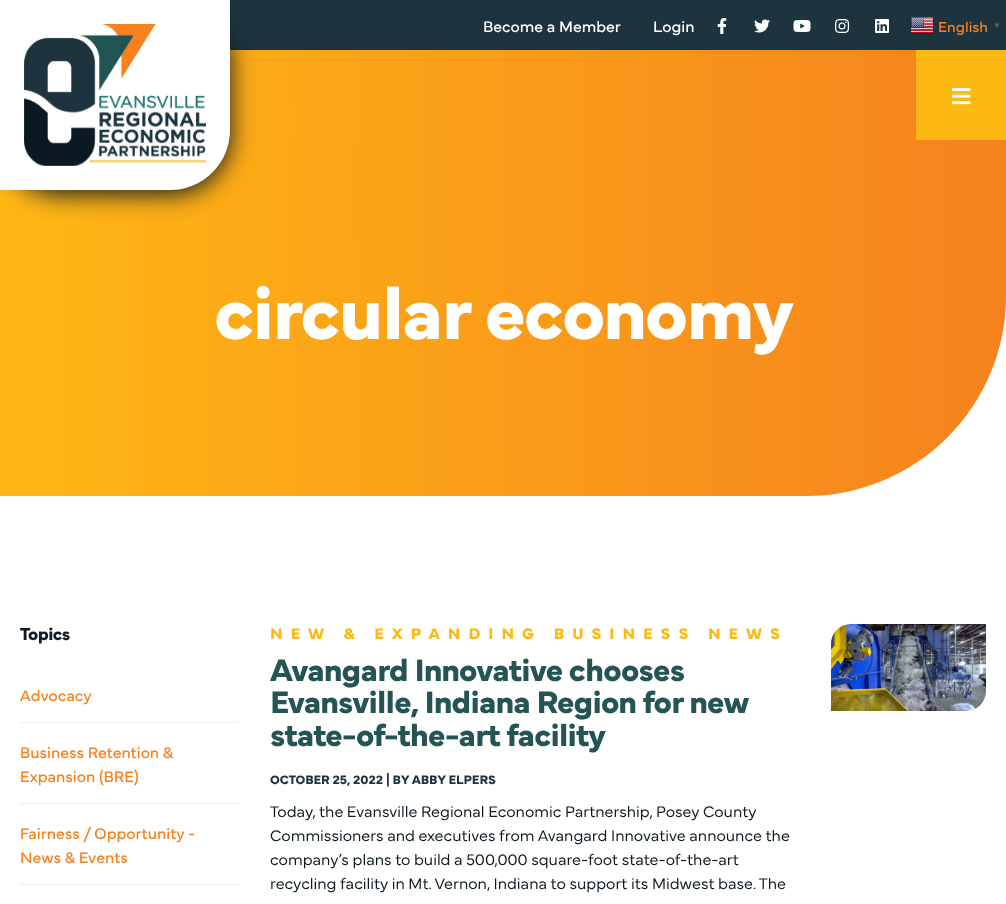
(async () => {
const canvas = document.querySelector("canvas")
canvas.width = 1006
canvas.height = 904
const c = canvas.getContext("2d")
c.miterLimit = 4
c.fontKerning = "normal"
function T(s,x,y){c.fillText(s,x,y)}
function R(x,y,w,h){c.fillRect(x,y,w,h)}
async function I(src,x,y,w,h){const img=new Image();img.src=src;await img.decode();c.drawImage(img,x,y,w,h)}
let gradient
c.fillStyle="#fff"
R(0,0,1006,904)
c.fillStyle="#1d333e"
R(230,0,776,50)
gradient = c.createLinearGradient(1006,93,-.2,97)
gradient.addColorStop(0,"#f5821e")
gradient.addColorStop(1,"#ffb714")
c.fillStyle = gradient
R(229,50,687,90)
gradient = c.createLinearGradient(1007,316,-.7,320)
gradient.addColorStop(0,"#f5821e")
gradient.addColorStop(1,"#ffb714")
c.fillStyle = gradient
c.beginPath()
c.roundRect(0,140,1006,356,[0,0,200,0])
c.fill()
c.fillStyle="#0d1a22"
c.filter="blur(12px)"
c.beginPath()
c.roundRect(0,4,230,190,60)
c.fill()
c.filter="none"
c.fillStyle="#fff"
c.beginPath()
c.roundRect(0,0,230,190,[0,0,60,0])
c.fill()
await I("1.png",24,24,182,142)
c.font="16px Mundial"
T("Become a Member",483,32)
T("Login",653,32)
await I("2.png",717,18,10,16)
await I("3.png",754,19,16,14)
await I("4.png",793,20,18,12)
await I("5.png",835,19,15,14)
await I("6.png",875,19,14,14)
await I("7.png",910,17,24,17)
c.font="15px Mundial"
c.fillStyle="#f58220"
T("English",938,32)
c.font="bold 8px Liberation Sans"
c.fillStyle="#666"
T("▼",993,28)
c.fillStyle="#fdb913"
R(916,50,90,90)
await I("8.png",952,88,19,17)
c.letterSpacing="-1.9px"
c.font="bold 76.25px Mundial"
c.fillStyle="#fff"
T("circular economy",214,339)
c.letterSpacing="-0.5px"
c.font="bold 18px Mundial"
c.fillStyle="#0d1a22"
T("Topics",20,640)
c.fillStyle="#eeeeef"
R(20,722,218,1)
c.letterSpacing="0px"
c.font="16px Mundial"
c.fillStyle="#f58220"
T("Advocacy",20,701)
c.fillStyle="#eeeeef"
R(20,803,218,1)
c.fillStyle="#f58220"
T("Business Retention &",20,758)
T("Expansion (BRE)",20,782)
c.fillStyle="#eeeeef"
R(20,884,218,1)
c.fillStyle="#f58220"
T("Fairness / Opportunity -",20,839)
T("News & Events",20,863)
c.letterSpacing="8px"
c.font="bold 16px Mundial"
c.fillStyle="#fdb913"
T("NEW & EXPANDING BUSINESS NEWS",270,639)
c.letterSpacing="-0.8px"
c.font="bold 32.25px Mundial"
c.fillStyle="#245453"
T("Avangard Innovative chooses",270,681)
T("Evansville, Indiana Region for new",270,713)
T("state-of-the-art facility",270,746)
c.letterSpacing="0px"
c.font="bold 12.75px Mundial"
c.fillStyle="#1d333e"
T("OCTOBER 25, 2022 | BY ABBY ELPERS",270,784)
c.font="300 16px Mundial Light"
c.fillStyle="#0d1a22"
T("Today, the Evansville Regional Economic Partnership, Posey County",270,817)
T("Commissioners and executives from Avangard Innovative announce the",270,841)
T("company’s plans to build a 500,000 square-foot state-of-the-art",270,865)
T("recycling facility in Mt. Vernon, Indiana to support its Midwest base. The",270,889)
await I("9.png",831,624,155,87)
})()
